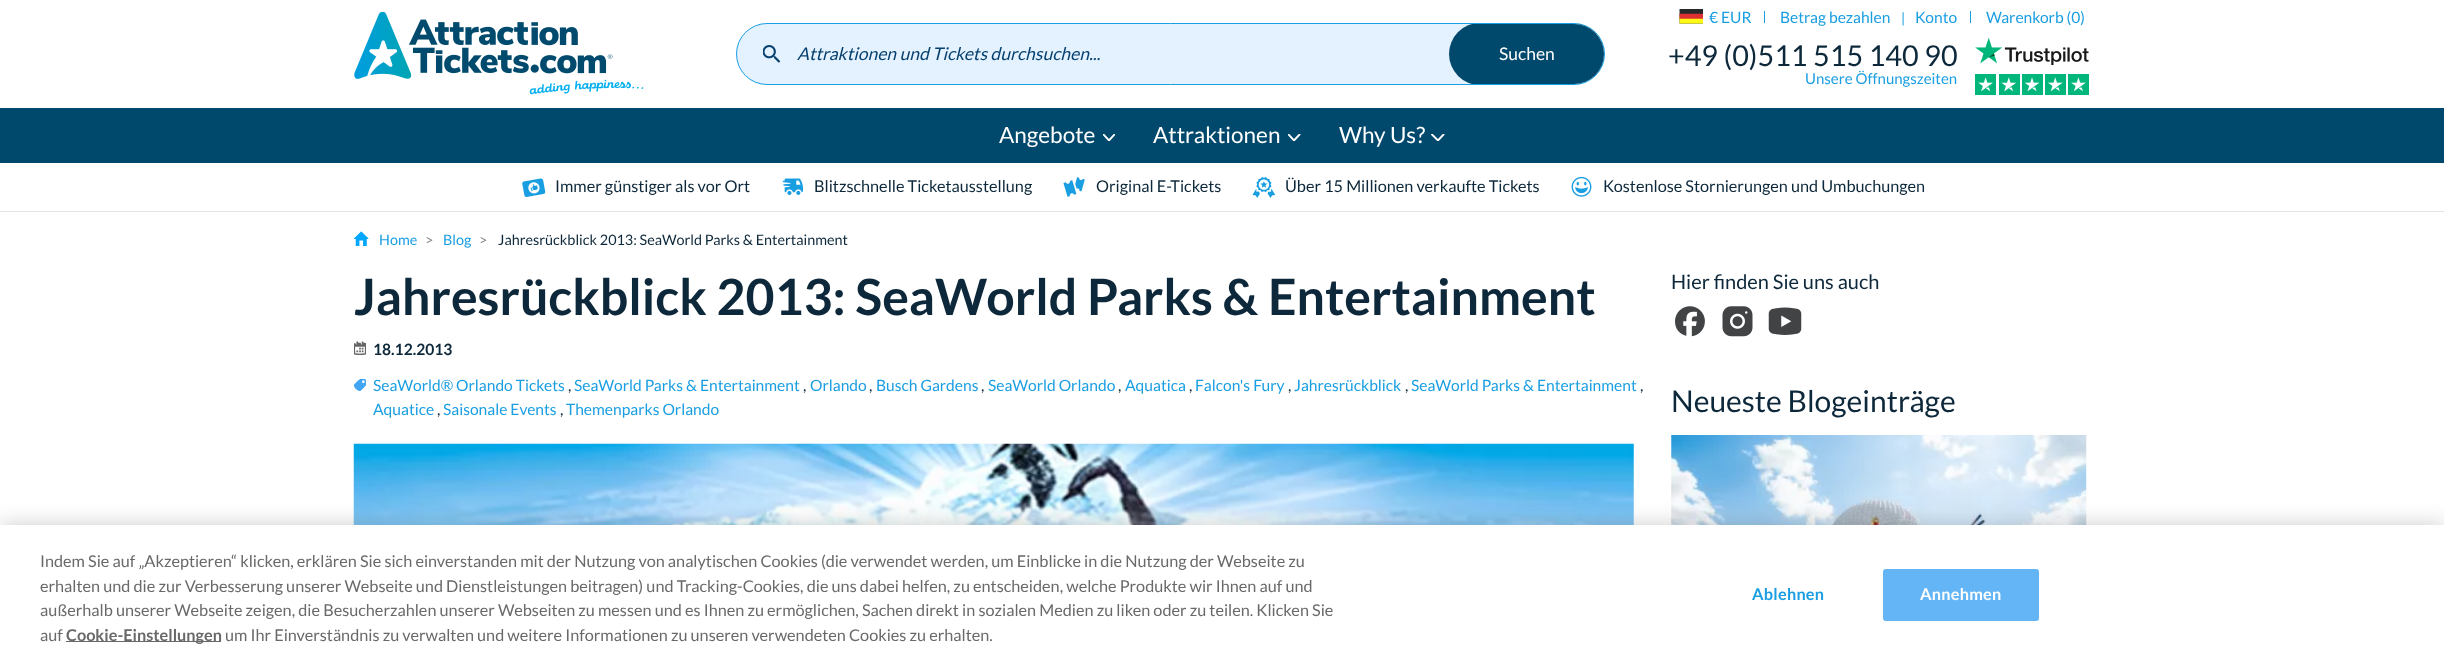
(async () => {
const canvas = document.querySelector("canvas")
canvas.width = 2444
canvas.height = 659
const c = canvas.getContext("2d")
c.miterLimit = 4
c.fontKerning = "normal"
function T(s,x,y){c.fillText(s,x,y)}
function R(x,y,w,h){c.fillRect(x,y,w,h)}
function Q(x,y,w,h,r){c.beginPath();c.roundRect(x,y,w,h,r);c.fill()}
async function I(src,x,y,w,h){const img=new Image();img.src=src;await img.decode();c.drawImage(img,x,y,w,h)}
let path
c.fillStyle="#fff"
R(0,0,2444,659)
await I("1.png",354,12,290,83)
await I("2.png",1679,9,24,15)
c.font="15.6px Lato"
c.fillStyle="#1a9ee2"
T("€ EUR",1709,23)
R(1764,11,1,12)
T("Betrag bezahlen",1780,23)
c.font="14px Lato"
T("|",1901,23)
c.font="15.6px Lato"
T("Konto",1915,23)
R(1970,11,1,12)
T("Warenkorb (0)",1986,23)
c.fillStyle="#e3f2fe"
c.beginPath()
c.roundRect(736.5,23.5,868,61,30.5)
c.fill()
c.strokeStyle="#1a9ee2"
c.stroke()
await I("3.png",763,45,17,18)
c.font="italic 17.5px Lato"
c.fillStyle="#06406f"
T("Attraktionen und Tickets durchsuchen...",797,60)
c.save()
c.beginPath()
c.roundRect(738,24,866,60,30)
c.clip()
c.fillStyle="#00496c"
Q(1449,23,156,62,31)
c.restore()
c.font="17.5px Lato"
c.fillStyle="#fff"
T("Suchen",1499,60)
c.font="28.75px Lato"
c.fillStyle="#0d283a"
T("+49 (0)511 515 140 90",1668,66)
c.font="15px Lato"
c.fillStyle="#1a9ee2"
T("Unsere Öffnungszeiten",1805,84)
await I("4.png",1975,38,114,27)
await I("5.png",1975,74,114,21)
c.fillStyle="#00496c"
R(0,108,2444,55)
c.font="22.5px Lato"
c.fillStyle="#fff"
T("Angebote",999,143)
c.save()
c.beginPath()
c.rect(1103,134,12,7)
c.clip()
path = new Path2D("M1103.5 134.5l5.5 6l5.5-6")
c.strokeStyle="#fff"
c.lineWidth=1.9
c.lineCap="round"
c.lineJoin="round"
c.stroke(path)
c.restore()
T("Attraktionen",1153,143)
c.save()
c.beginPath()
c.rect(1288,134,13,7)
c.clip()
path = new Path2D("M1288.5 134.5l5.5 6l5.5-6")
c.strokeStyle="#fff"
c.lineWidth=1.9
c.lineCap="round"
c.lineJoin="round"
c.stroke(path)
c.restore()
T("Why Us?",1339,143)
c.save()
c.beginPath()
c.rect(1431,134,14,7)
c.clip()
path = new Path2D("M1432 134.5l6 6l5.5-6")
c.strokeStyle="#fff"
c.lineWidth=1.9
c.lineCap="round"
c.lineJoin="round"
c.stroke(path)
c.restore()
c.fillStyle="#e4e4e4"
R(0,211,2444,1)
await I("6.png",522,178,24,19)
c.font="16.25px Lato"
c.fillStyle="#0d283a"
T("Immer günstiger als vor Ort",555,192)
await I("7.png",782,178,22,17)
T("Blitzschnelle Ticketausstellung",814,192)
await I("8.png",1063,177,22,20)
T("Original E-Tickets",1096,192)
await I("9.png",1252,177,24,21)
T("Über 15 Millionen verkaufte Tickets",1285,192)
await I("10.png",1571,176,21,21)
T("Kostenlose Stornierungen und Umbuchungen",1603,192)
await I("11.png",354,231,15,15)
c.font="14.4px Lato"
c.fillStyle="#1a9ee2"
T("Home",379,245)
c.fillStyle="#848484"
T(">",425,245)
c.fillStyle="#1a9ee2"
T("Blog",443,245)
c.fillStyle="#848484"
T(">",479,245)
c.fillStyle="#0d283a"
T("Jahresrückblick 2013: SeaWorld Parks & Entertainment",498,245)
c.font="bold 50px Lato"
T("Jahresrückblick 2013: SeaWorld Parks & Entertainment",354,315)
await I("12.png",354,341,12,14)
c.font="bold 15.6px Lato"
T("18.12.2013",373,355)
await I("13.png",354,379,12,12)
c.font="15.6px Lato"
c.fillStyle="#1a9ee2"
T("SeaWorld® Orlando Tickets",373,391)
c.fillStyle="#0d283a"
T(",",568,391)
c.fillStyle="#1a9ee2"
T("SeaWorld Parks & Entertainment",574,391)
c.fillStyle="#0d283a"
T(",",803,391)
c.fillStyle="#1a9ee2"
T("Orlando",810,391)
c.fillStyle="#0d283a"
T(",",869,391)
c.fillStyle="#1a9ee2"
T("Busch Gardens",876,391)
c.fillStyle="#0d283a"
T(",",981,391)
c.fillStyle="#1a9ee2"
T("SeaWorld Orlando",988,391)
c.fillStyle="#0d283a"
T(",",1118,391)
c.fillStyle="#1a9ee2"
T("Aquatica",1125,391)
c.fillStyle="#0d283a"
T(",",1189,391)
c.fillStyle="#1a9ee2"
T("Falcon's Fury",1195,391)
c.fillStyle="#0d283a"
T(",",1288,391)
c.fillStyle="#1a9ee2"
T("Jahresrückblick",1294,391)
c.fillStyle="#0d283a"
T(",",1405,391)
c.fillStyle="#1a9ee2"
T("SeaWorld Parks & Entertainment",1411,391)
c.fillStyle="#0d283a"
T(",",1640,391)
c.fillStyle="#1a9ee2"
T("Aquatice",373,415)
c.fillStyle="#0d283a"
T(",",437,415)
c.fillStyle="#1a9ee2"
T("Saisonale Events",443,415)
c.fillStyle="#0d283a"
T(",",560,415)
c.fillStyle="#1a9ee2"
T("Themenparks Orlando",566,415)
await I("14.png",353,443,1281,82)
c.font="20px Lato"
c.fillStyle="#0d283a"
T("Hier finden Sie uns auch",1671,289)
await I("15.png",1675,306,30,31)
await I("16.png",1722,306,31,31)
await I("17.png",1768,307,34,28)
c.font="30px Lato"
T("Neueste Blogeinträge",1671,412)
await I("18.png",1671,435,416,90)
c.fillStyle="#00000033"
c.filter="blur(11px)"
c.beginPath()
c.rect(0,525,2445,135)
c.fill()
c.filter="none"
c.fillStyle="#fff"
R(0,525,2444,134)
c.font="16.25px Lato"
c.fillStyle="#696969"
T("Indem Sie auf „Akzeptieren“ klicken, erklären Sie sich einverstanden mit der Nutzung von analytischen Cookies (die verwendet werden, um Einblicke in die Nutzung der Webseite zu",40,567)
T("erhalten und die zur Verbesserung unserer Webseite und Dienstleistungen beitragen) und Tracking-Cookies, die uns dabei helfen, zu entscheiden, welche Produkte wir Ihnen auf und",40,592)
T("außerhalb unserer Webseite zeigen, die Besucherzahlen unserer Webseiten zu messen und es Ihnen zu ermöglichen, Sachen direkt in sozialen Medien zu liken oder zu teilen. Klicken Sie",40,616)
T("auf",40,641)
R(66,641,155,1)
c.font="bold 16.25px Lato"
T("Cookie-Einstellungen",66,641)
c.font="16.25px Lato"
T("um Ihr Einverständnis zu verwalten und weitere Informationen zu unseren verwendeten Cookies zu erhalten.",225,641)
c.letterSpacing="0.25px"
c.font="bold 16.25px Lato"
c.fillStyle="#1a9ee2"
T("Ablehnen",1752,600)
c.fillStyle="#64b5f6"
c.beginPath()
c.roundRect(1883.5,569.5,155,51,2)
c.fill()
c.strokeStyle="#64b5f6"
c.stroke()
c.fillStyle="#fff"
T("Annehmen",1920,600)
})()
